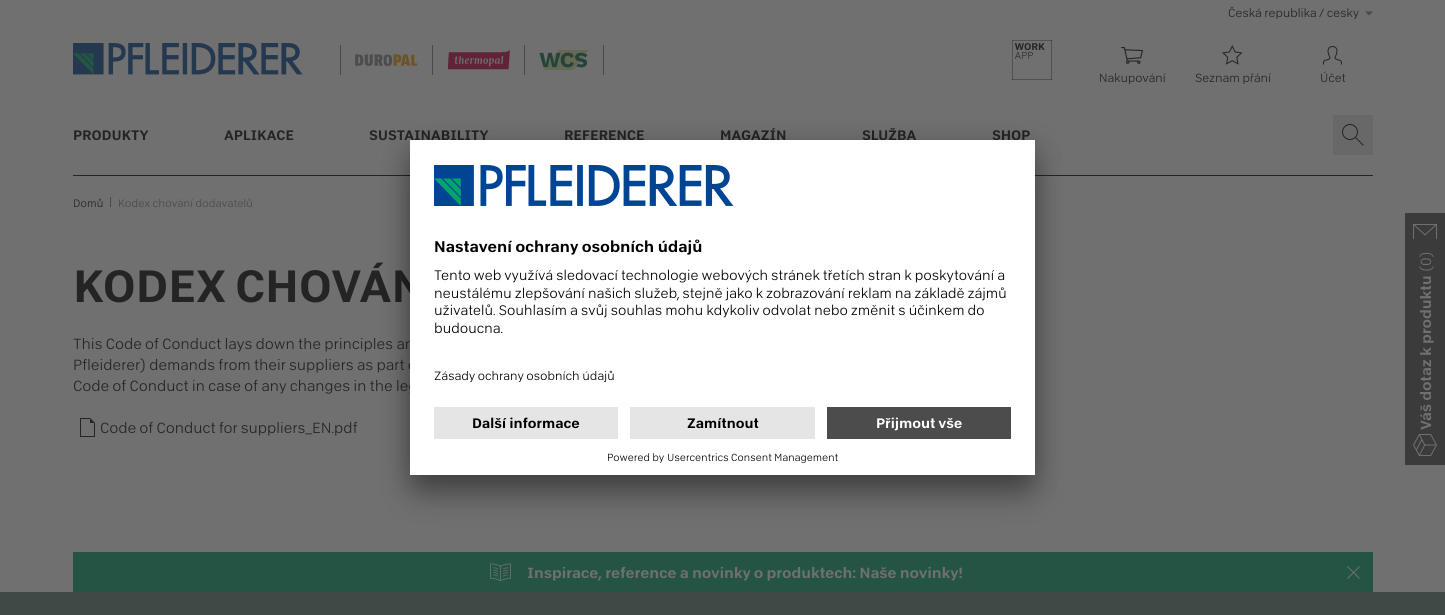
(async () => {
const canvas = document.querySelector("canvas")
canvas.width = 1445
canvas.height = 615
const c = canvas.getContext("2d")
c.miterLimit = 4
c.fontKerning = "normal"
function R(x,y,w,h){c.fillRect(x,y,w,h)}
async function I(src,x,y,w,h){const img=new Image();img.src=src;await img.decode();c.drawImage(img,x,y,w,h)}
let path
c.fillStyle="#707070"
R(0,0,1445,615)
await I("1.png",1228,6,88,13)
await I("2.png",1319,8,40,11)
c.fillStyle="#4a4a4a"
path = new Path2D("M1373 11.5l-4 4l-4-4z")
c.fill(path)
await I("3.png",73,43,230,32)
R(432,45,1,30)
R(340,45,1,30)
await I("4.png",355,54,63,12)
R(524,45,1,30)
await I("5.png",447,50,63,20)
R(603,45,1,30)
await I("6.png",539,50,50,20)
await I("7.png",1012,40,40,40)
await I("8.png",1121,47,22,17)
await I("9.png",1100,73,66,11)
await I("10.png",1222,45,21,20)
await I("11.png",1195,73,76,11)
await I("12.png",1323,46,19,19)
await I("13.png",1321,71,25,12)
await I("14.png",74,130,75,11)
await I("15.png",224,130,70,11)
await I("16.png",369,130,120,11)
await I("17.png",565,130,79,10)
await I("18.png",721,128,65,12)
await I("19.png",862,128,54,12)
await I("20.png",992,130,38,10)
c.fillStyle="#686868"
R(1333,115,40,40)
await I("21.png",1342,124,22,22)
c.fillStyle="#242424"
R(73,175,1300,1)
await I("22.png",74,198,29,10)
c.fillStyle="#4a4a4a"
R(110,197,1,10)
await I("23.png",119,198,133,10)
await I("37.png",76,262,334,41)
await I("38.png",73,337,337,15)
await I("39.png",74,358,336,15)
await I("40.png",74,379,336,15)
c.fillStyle="#0000004d"
c.filter="blur(14px)"
c.beginPath()
c.rect(410,160,625,335)
c.fill()
c.filter="none"
c.fillStyle="#00000038"
c.filter="blur(13px)"
c.beginPath()
c.rect(410,145,625,335)
c.fill()
c.filter="none"
c.fillStyle="#fff"
R(410,140,625,335)
await I("24.png",434,165,300,41)
await I("25.png",435,239,267,16)
await I("26.png",434,269,571,14)
await I("27.png",435,287,571,14)
await I("28.png",435,304,549,14)
await I("29.png",435,322,68,12)
await I("30.png",434,370,180,13)
c.fillStyle="#e5e5e5"
R(434,407,184,32)
await I("31.png",473,417,107,12)
R(630,407,185,32)
await I("32.png",687,418,72,11)
c.fillStyle="#4c4c4c"
R(827,407,184,32)
await I("33.png",877,417,85,14)
await I("34.png",608,453,56,10)
await I("35.png",668,453,170,10)
c.fillStyle="#3b3b3b"
R(1405,213,40,252)
await I("36.png",1413,224,24,15)
await I("41.png",80,418,15,19)
await I("42.png",101,421,257,15)
await I("43.png",1419,252,15,19)
await I("44.png",1419,276,15,154)
await I("45.png",1413,434,24,22)
c.fillStyle="#245544"
R(73,552,1300,40)
await I("46.png",490,563,21,19)
await I("47.png",527,566,435,15)
await I("48.png",1347,566,13,13)
c.fillStyle="#414947"
R(0,592,1445,23)
})()
